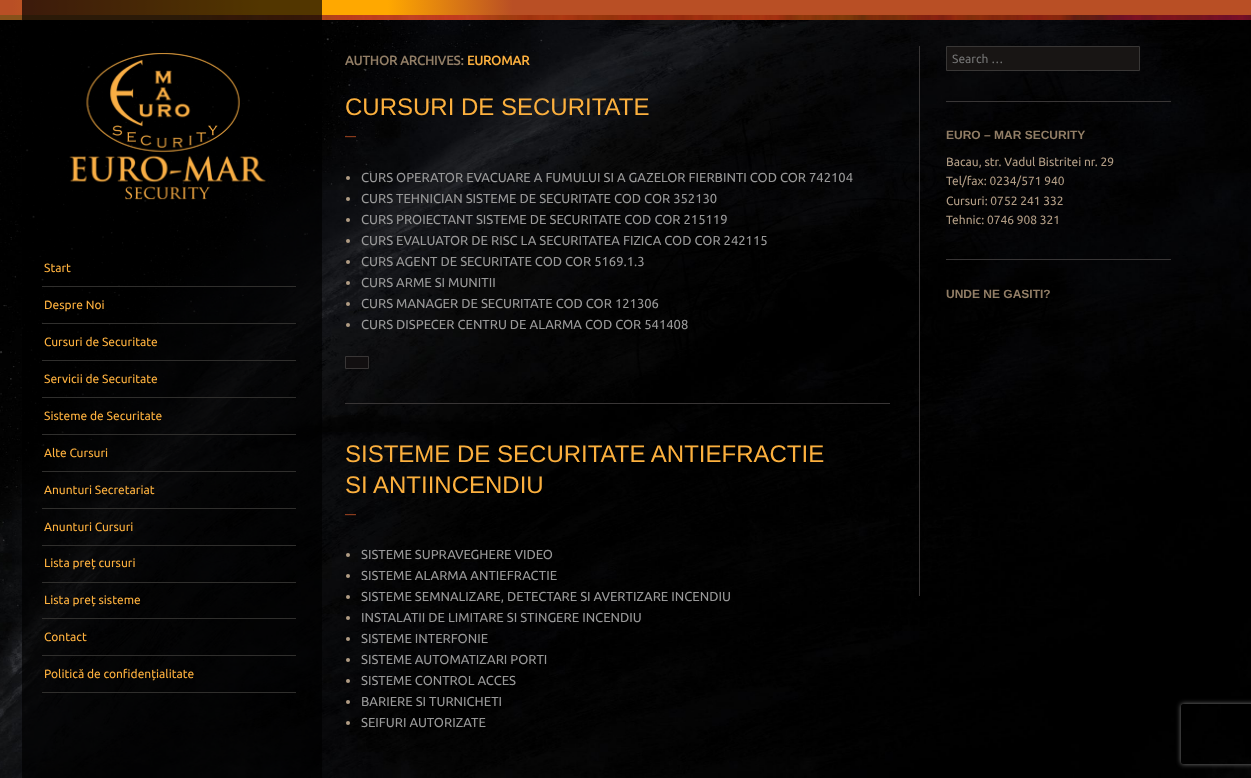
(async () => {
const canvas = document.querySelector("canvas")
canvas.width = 1251
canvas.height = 778
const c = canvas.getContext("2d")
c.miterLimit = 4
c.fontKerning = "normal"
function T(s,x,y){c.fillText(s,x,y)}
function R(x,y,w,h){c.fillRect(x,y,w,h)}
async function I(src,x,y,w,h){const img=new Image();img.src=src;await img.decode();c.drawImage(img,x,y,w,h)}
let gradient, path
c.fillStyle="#fff"
R(0,0,1251,778)
await I("1.png",0,20,1251,758)
gradient = c.createLinearGradient(0,10,1251,10)
gradient.addColorStop(.01,"#b94f25")
gradient.addColorStop(.21,"#ffa800")
gradient.addColorStop(.31,"#ffa800")
gradient.addColorStop(.41,"#b94f25")
c.fillStyle = gradient
R(0,0,1251,15)
await I("2.png",0,15,1251,5)
c.fillStyle="#000000ad"
R(22,0,300,778)
await I("3.png",69,53,197,147)
c.fillStyle="#302f2d"
R(42,286,254,1)
c.font="12px Ubuntu"
c.fillStyle="#fcb03e"
T("Start",44,272)
c.fillStyle="#302f2d"
R(42,323,254,1)
c.fillStyle="#fcb03e"
T("Despre Noi",44,309)
c.fillStyle="#302f2d"
R(42,360,254,1)
c.fillStyle="#fcb03e"
T("Cursuri de Securitate",44,346)
c.fillStyle="#302f2d"
R(42,397,254,1)
c.fillStyle="#fcb03e"
T("Servicii de Securitate",44,383)
c.fillStyle="#302f2d"
R(42,434,254,1)
c.fillStyle="#fcb03e"
T("Sisteme de Securitate",44,420)
c.fillStyle="#302f2d"
R(42,471,254,1)
c.fillStyle="#fcb03e"
T("Alte Cursuri",44,457)
c.fillStyle="#302f2d"
R(42,508,254,1)
c.fillStyle="#fcb03e"
T("Anunturi Secretariat",44,494)
c.fillStyle="#302f2d"
R(42,545,254,1)
c.fillStyle="#fcb03e"
T("Anunturi Cursuri",44,531)
c.fillStyle="#302f2d"
R(42,582,254,1)
c.fillStyle="#fcb03e"
T("Lista preț cursuri",44,567)
c.fillStyle="#302f2d"
R(42,618,254,1)
c.fillStyle="#fcb03e"
T("Lista preț sisteme",44,604)
c.fillStyle="#302f2d"
R(42,655,254,1)
c.fillStyle="#fcb03e"
T("Contact",44,641)
c.fillStyle="#302f2d"
R(42,692,254,1)
c.fillStyle="#fcb03e"
T("Politică de confidențialitate",44,678)
c.font="bold 13px Ubuntu"
c.fillStyle="#927e66"
T("AUTHOR ARCHIVES:",345,65)
c.fillStyle="#fcb03e"
T("EUROMAR",467,65)
c.fillStyle="#393636"
R(345,403,545,1)
c.font="24px Liberation Sans"
c.fillStyle="#fcb03e"
T("CURSURI DE SECURITATE",345,115)
c.letterSpacing="1px"
c.font="11px Ubuntu"
c.fillStyle="#b94f25"
T("—",345,140)
c.fillStyle="#b29d85"
c.beginPath()
c.arc(348,178,2,0,7)
c.fill()
c.letterSpacing="0px"
c.font="13px Ubuntu"
c.fillStyle="#999"
T("CURS OPERATOR EVACUARE A FUMULUI SI A GAZELOR FIERBINTI COD COR 742104",361,182)
c.fillStyle="#b29d85"
c.beginPath()
c.arc(348,199,2,0,7)
c.fill()
c.fillStyle="#999"
T("CURS TEHNICIAN SISTEME DE SECURITATE COD COR 352130",361,203)
c.fillStyle="#b29d85"
c.beginPath()
c.arc(348,220,2,0,7)
c.fill()
c.fillStyle="#999"
T("CURS PROIECTANT SISTEME DE SECURITATE COD COR 215119",361,224)
c.fillStyle="#b29d85"
c.beginPath()
c.arc(348,241,2,0,7)
c.fill()
c.fillStyle="#999"
T("CURS EVALUATOR DE RISC LA SECURITATEA FIZICA COD COR 242115",361,245)
c.fillStyle="#b29d85"
c.beginPath()
c.arc(348,262,2,0,7)
c.fill()
c.fillStyle="#999"
T("CURS AGENT DE SECURITATE COD COR 5169.1.3",361,266)
c.fillStyle="#b29d85"
c.beginPath()
c.arc(348,283,2,0,7)
c.fill()
c.fillStyle="#999"
T("CURS ARME SI MUNITII",361,287)
c.fillStyle="#b29d85"
c.beginPath()
c.arc(348,304,2,0,7)
c.fill()
c.fillStyle="#999"
T("CURS MANAGER DE SECURITATE COD COR 121306",361,308)
c.fillStyle="#b29d85"
c.beginPath()
c.arc(348,325,2,0,7)
c.fill()
c.fillStyle="#999"
T("CURS DISPECER CENTRU DE ALARMA COD COR 541408",361,329)
c.fillStyle="#00000033"
path = new Path2D("M347 369v2h24v-13h-2v11z")
c.fill(path)
c.fillStyle="#120f10"
c.beginPath()
c.rect(345.5,356.5,23,12)
c.fill()
c.strokeStyle="#393636"
c.stroke()
c.font="24px Liberation Sans"
c.fillStyle="#fcb03e"
T("SISTEME DE SECURITATE ANTIEFRACTIE",345,462)
T("SI ANTIINCENDIU",345,493)
c.letterSpacing="1px"
c.font="11px Ubuntu"
c.fillStyle="#b94f25"
T("—",345,518)
c.fillStyle="#b29d85"
c.beginPath()
c.arc(348,555,2,0,7)
c.fill()
c.letterSpacing="0px"
c.font="13px Ubuntu"
c.fillStyle="#999"
T("SISTEME SUPRAVEGHERE VIDEO",361,559)
c.fillStyle="#b29d85"
c.beginPath()
c.arc(348,576,2,0,7)
c.fill()
c.fillStyle="#999"
T("SISTEME ALARMA ANTIEFRACTIE",361,580)
c.fillStyle="#b29d85"
c.beginPath()
c.arc(348,597,2,0,7)
c.fill()
c.fillStyle="#999"
T("SISTEME SEMNALIZARE, DETECTARE SI AVERTIZARE INCENDIU",361,601)
c.fillStyle="#b29d85"
c.beginPath()
c.arc(348,618,2,0,7)
c.fill()
c.fillStyle="#999"
T("INSTALATII DE LIMITARE SI STINGERE INCENDIU",361,622)
c.fillStyle="#b29d85"
c.beginPath()
c.arc(348,639,2,0,7)
c.fill()
c.fillStyle="#999"
T("SISTEME INTERFONIE",361,643)
c.fillStyle="#b29d85"
c.beginPath()
c.arc(348,660,2,0,7)
c.fill()
c.fillStyle="#999"
T("SISTEME AUTOMATIZARI PORTI",361,664)
c.fillStyle="#b29d85"
c.beginPath()
c.arc(348,681,2,0,7)
c.fill()
c.fillStyle="#999"
T("SISTEME CONTROL ACCES",361,685)
c.fillStyle="#b29d85"
c.beginPath()
c.arc(348,702,2,0,7)
c.fill()
c.fillStyle="#999"
T("BARIERE SI TURNICHETI",361,706)
c.fillStyle="#b29d85"
c.beginPath()
c.arc(348,723,2,0,7)
c.fill()
c.fillStyle="#999"
T("SEIFURI AUTORIZATE",361,727)
c.fillStyle="#393636"
R(919,46,1,550)
c.fillStyle="#181514"
c.beginPath()
c.rect(946.5,46.5,193,24)
c.fill()
c.strokeStyle="#393736"
c.stroke()
c.font="12px Ubuntu"
c.fillStyle="#757575"
T("Search …",952,63)
c.fillStyle="#393636"
R(946,101,225,1)
c.font="bold 12px Liberation Sans"
c.fillStyle="#927e66"
T("EURO – MAR SECURITY",946,139)
c.font="12px Ubuntu"
c.fillStyle="#b29d85"
T("Bacau, str. Vadul Bistritei nr. 29",946,166)
T("Tel/fax: 0234/571 940",946,185)
T("Cursuri: 0752 241 332",946,205)
T("Tehnic: 0746 908 321",946,224)
c.fillStyle="#393636"
R(946,259,225,1)
c.font="bold 12px Liberation Sans"
c.fillStyle="#927e66"
T("UNDE NE GASITI?",946,298)
c.save()
path = new Path2D("M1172 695h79v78h-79zm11 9h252c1 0 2 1 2 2v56c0 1-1 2-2 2h-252c-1 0-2-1-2-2v-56c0-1 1-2 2-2z")
c.clip(path,"evenodd")
c.fillStyle="#808080"
c.filter="blur(2.5px)"
c.beginPath()
c.roundRect(1181,704,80,60,2)
c.fill()
c.filter="none"
c.restore()
})()
